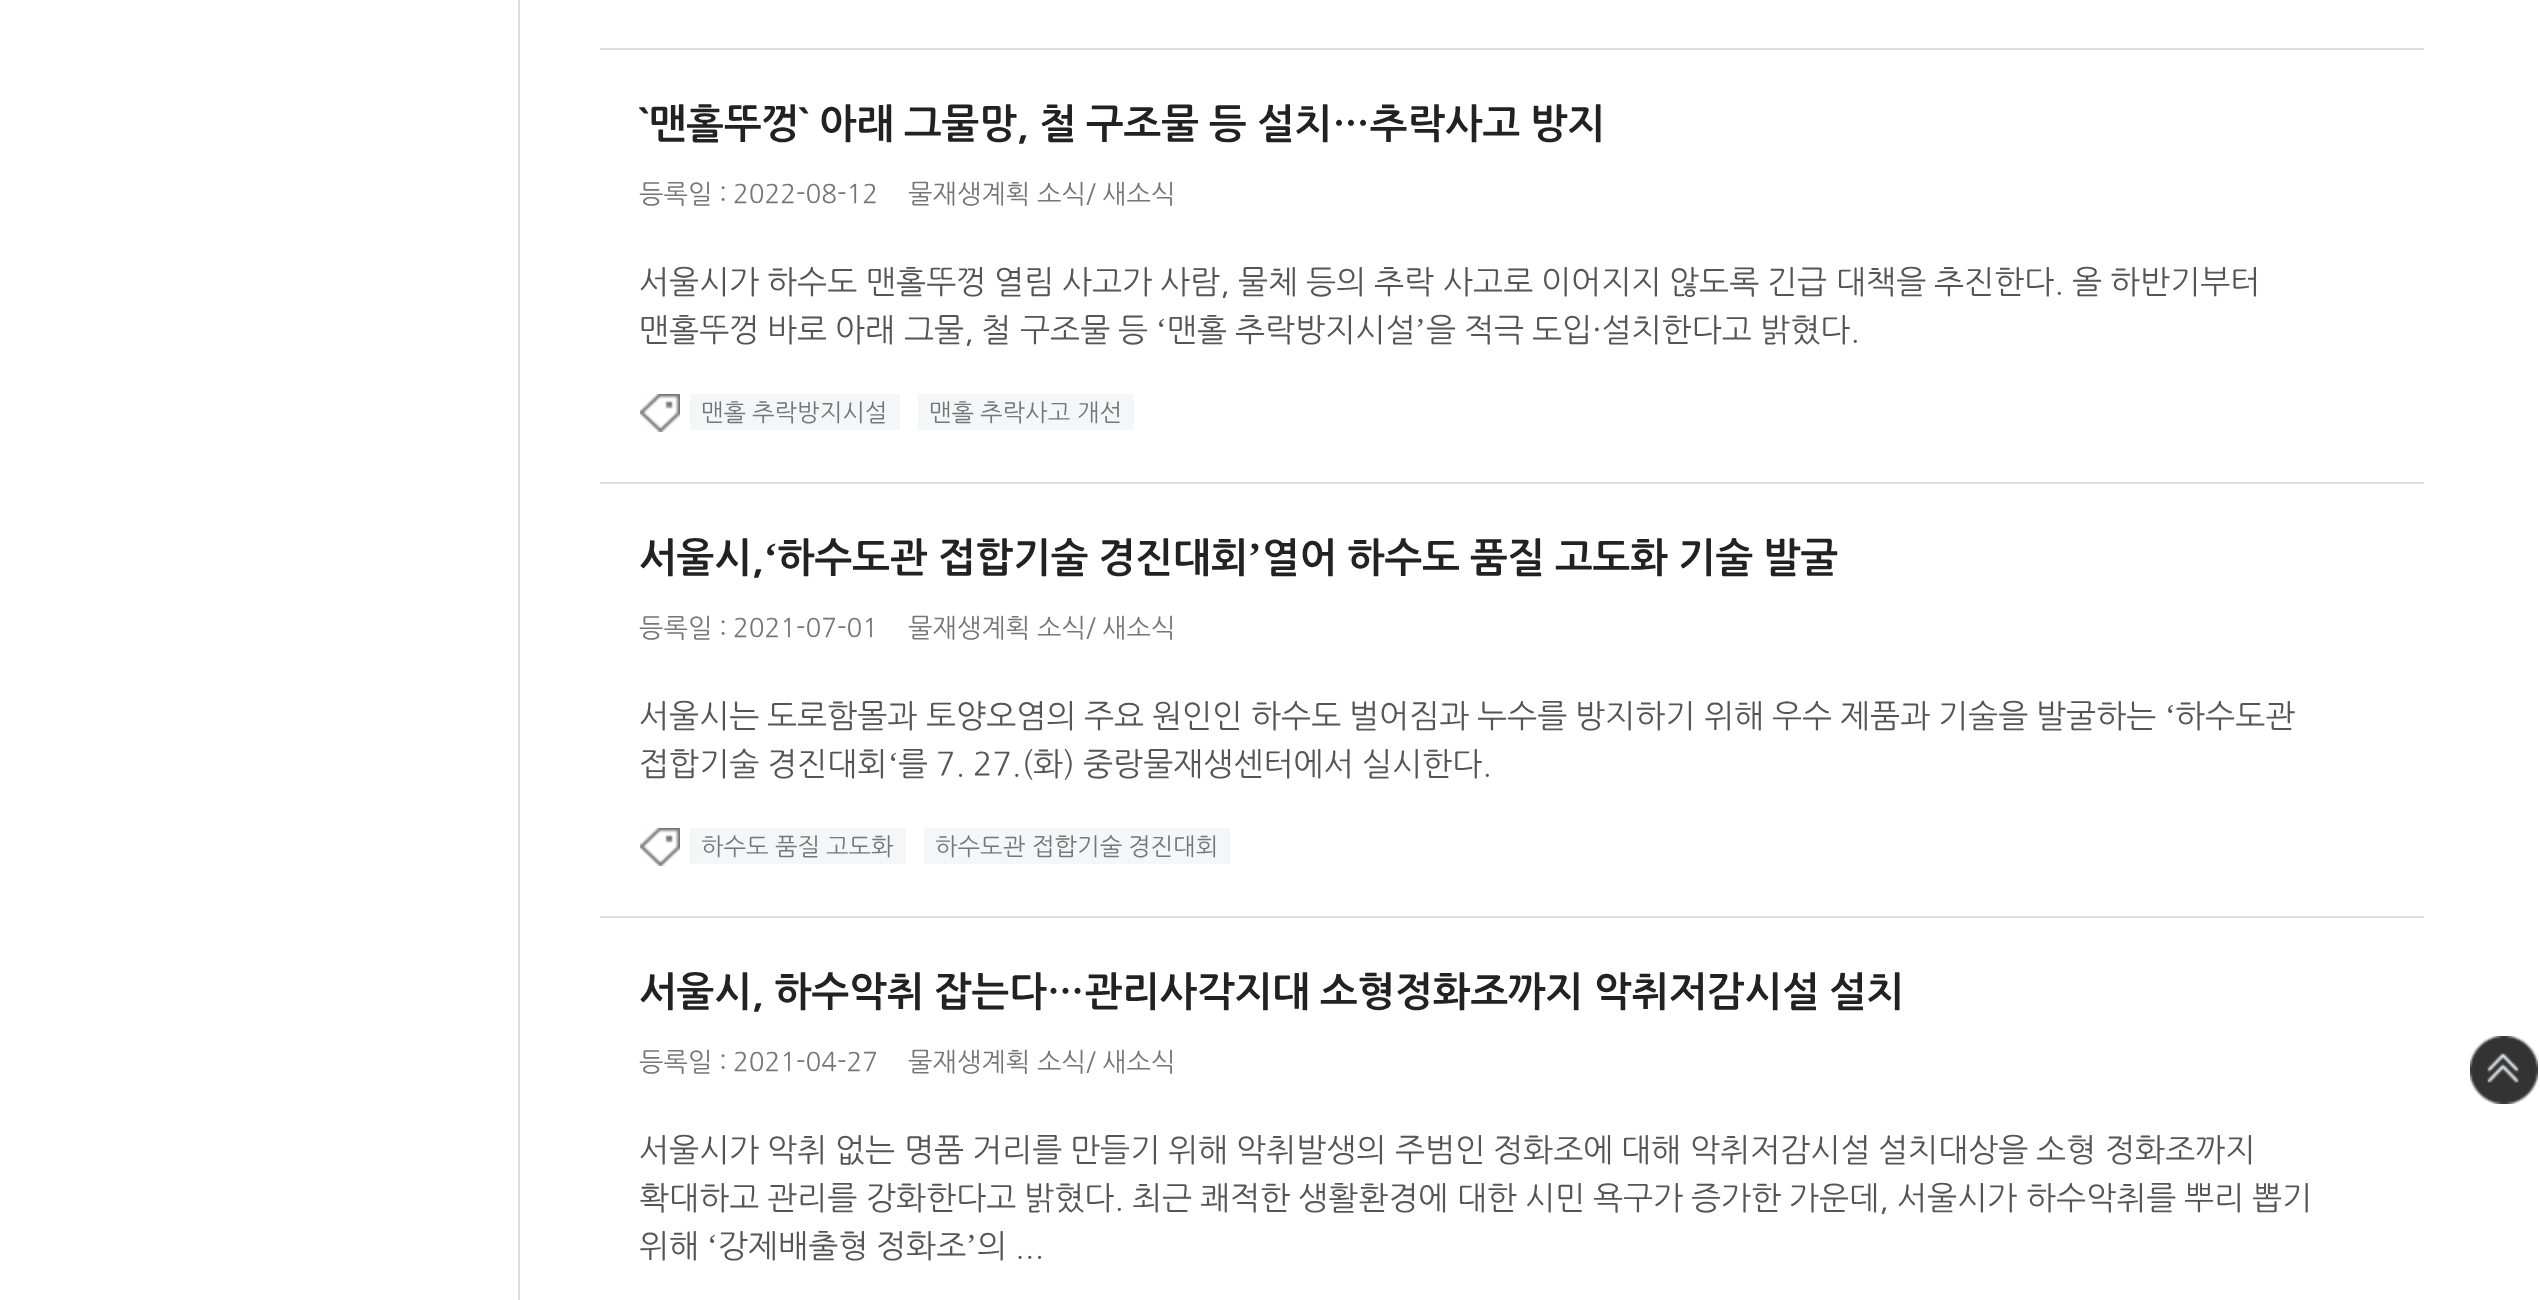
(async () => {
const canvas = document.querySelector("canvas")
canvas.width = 2540
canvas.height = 1300
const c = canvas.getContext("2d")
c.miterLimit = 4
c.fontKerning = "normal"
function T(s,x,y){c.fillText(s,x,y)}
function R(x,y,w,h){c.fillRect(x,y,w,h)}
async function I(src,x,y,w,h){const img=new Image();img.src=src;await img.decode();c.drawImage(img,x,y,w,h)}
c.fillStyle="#fff"
R(0,0,2540,1300)
c.fillStyle="#ddd"
R(518,0,2,1300)
R(600,48,1824,2)
R(600,482,1824,2)
c.font="bold 40px NanumGothic"
c.fillStyle="#222"
T("`맨홀뚜껑`",639,136)
T("아래",819,136)
T("그물망,",904,136)
T("철",1039,136)
T("구조물",1086,136)
T("등",1209,136)
T("설치…추락사고",1257,136)
T("방지",1530,136)
c.font="26px NanumGothic"
c.fillStyle="#767676"
T("등록일",639,202)
T(":",719,202)
T("2022-08-12",733,202)
T("물재생계획",908,202)
T("소식/",1037,202)
T("새소식",1102,202)
c.font="32px NanumGothic"
c.fillStyle="#555"
T("서울시가",639,292)
T("하수도",767,292)
T("맨홀뚜껑",866,292)
T("열림",994,292)
T("사고가",1062,292)
T("사람,",1160,292)
T("물체",1238,292)
T("등의",1306,292)
T("추락",1374,292)
T("사고로",1443,292)
T("이어지지",1541,292)
T("않도록",1669,292)
T("긴급",1767,292)
T("대책을",1836,292)
T("추진한다.",1934,292)
T("올",2072,292)
T("하반기부터",2110,292)
T("맨홀뚜껑",639,340)
T("바로",767,340)
T("아래",835,340)
T("그물,",904,340)
T("철",981,340)
T("구조물",1020,340)
T("등",1118,340)
c.font="32px Liberation Serif"
T("‘",1156,340)
c.font="32px NanumGothic"
T("맨홀",1167,340)
T("추락방지시설",1235,340)
c.font="32px Liberation Serif"
T("’",1415,340)
c.font="32px NanumGothic"
T("을",1426,340)
T("적극",1464,340)
T("도입·설치한다고",1532,340)
T("밝혔다.",1760,340)
await I("1.png",640,394,40,38)
c.fillStyle="#f4f6f7"
R(690,394,210,36)
c.font="24px NanumGothic"
c.fillStyle="#767676"
T("맨홀",701,420)
T("추락방지시설",752,420)
c.fillStyle="#f4f6f7"
R(918,394,216,36)
c.fillStyle="#767676"
T("맨홀",929,420)
T("추락사고",980,420)
T("개선",1077,420)
c.fillStyle="#ddd"
R(600,916,1824,2)
c.font="bold 40px NanumGothic"
c.fillStyle="#222"
T("서울시,",639,570)
c.font="bold 40px Liberation Serif"
T("‘",764,570)
c.font="bold 40px NanumGothic"
T("하수도관",777,570)
T("접합기술",938,570)
T("경진대회",1098,570)
c.font="bold 40px Liberation Serif"
T("’",1248,570)
c.font="bold 40px NanumGothic"
T("열어",1262,570)
T("하수도",1347,570)
T("품질",1470,570)
T("고도화",1555,570)
T("기술",1678,570)
T("발굴",1763,570)
c.font="26px NanumGothic"
c.fillStyle="#767676"
T("등록일",639,636)
T(":",719,636)
T("2021-07-01",733,636)
T("물재생계획",908,636)
T("소식/",1037,636)
T("새소식",1102,636)
c.font="32px NanumGothic"
c.fillStyle="#555"
T("서울시는",639,726)
T("도로함몰과",767,726)
T("토양오염의",926,726)
T("주요",1084,726)
T("원인인",1152,726)
T("하수도",1251,726)
T("벌어짐과",1349,726)
T("누수를",1477,726)
T("방지하기",1575,726)
T("위해",1704,726)
T("우수",1772,726)
T("제품과",1840,726)
T("기술을",1938,726)
T("발굴하는",2036,726)
c.font="32px Liberation Serif"
T("‘",2165,726)
c.font="32px NanumGothic"
T("하수도관",2175,726)
T("접합기술",639,774)
T("경진대회",767,774)
c.font="32px Liberation Serif"
T("‘",888,774)
c.font="32px NanumGothic"
T("를",898,774)
T("7.",936,774)
T("27.(화)",973,774)
T("중랑물재생센터에서",1083,774)
T("실시한다.",1362,774)
await I("1.png",640,828,40,38)
c.fillStyle="#f4f6f7"
R(690,828,216,36)
c.font="24px NanumGothic"
c.fillStyle="#767676"
T("하수도",701,854)
T("품질",775,854)
T("고도화",826,854)
c.fillStyle="#f4f6f7"
R(924,828,306,36)
c.fillStyle="#767676"
T("하수도관",935,854)
T("접합기술",1032,854)
T("경진대회",1128,854)
c.font="bold 40px NanumGothic"
c.fillStyle="#222"
T("서울시,",639,1004)
T("하수악취",774,1004)
T("잡는다…관리사각지대",934,1004)
T("소형정화조까지",1320,1004)
T("악취저감시설",1594,1004)
T("설치",1829,1004)
c.font="26px NanumGothic"
c.fillStyle="#767676"
T("등록일",639,1070)
T(":",719,1070)
T("2021-04-27",733,1070)
T("물재생계획",908,1070)
T("소식/",1037,1070)
T("새소식",1102,1070)
c.font="32px NanumGothic"
c.fillStyle="#555"
T("서울시가",639,1160)
T("악취",767,1160)
T("없는",835,1160)
T("명품",904,1160)
T("거리를",972,1160)
T("만들기",1070,1160)
T("위해",1168,1160)
T("악취발생의",1236,1160)
T("주범인",1395,1160)
T("정화조에",1493,1160)
T("대해",1621,1160)
T("악취저감시설",1690,1160)
T("설치대상을",1878,1160)
T("소형",2036,1160)
T("정화조까지",2105,1160)
T("확대하고",639,1208)
T("관리를",767,1208)
T("강화한다고",866,1208)
T("밝혔다.",1024,1208)
T("최근",1132,1208)
T("쾌적한",1200,1208)
T("생활환경에",1298,1208)
T("대한",1457,1208)
T("시민",1525,1208)
T("욕구가",1593,1208)
T("증가한",1691,1208)
T("가운데,",1789,1208)
T("서울시가",1897,1208)
T("하수악취를",2026,1208)
T("뿌리",2184,1208)
T("뽑기",2252,1208)
T("위해",639,1256)
c.font="32px Liberation Serif"
T("‘",707,1256)
c.font="32px NanumGothic"
T("강제배출형",718,1256)
T("정화조",876,1256)
c.font="32px Liberation Serif"
T("’",966,1256)
c.font="32px NanumGothic"
T("의",977,1256)
T("...",1015,1256)
await I("2.png",2470,1036,68,68)
})()
